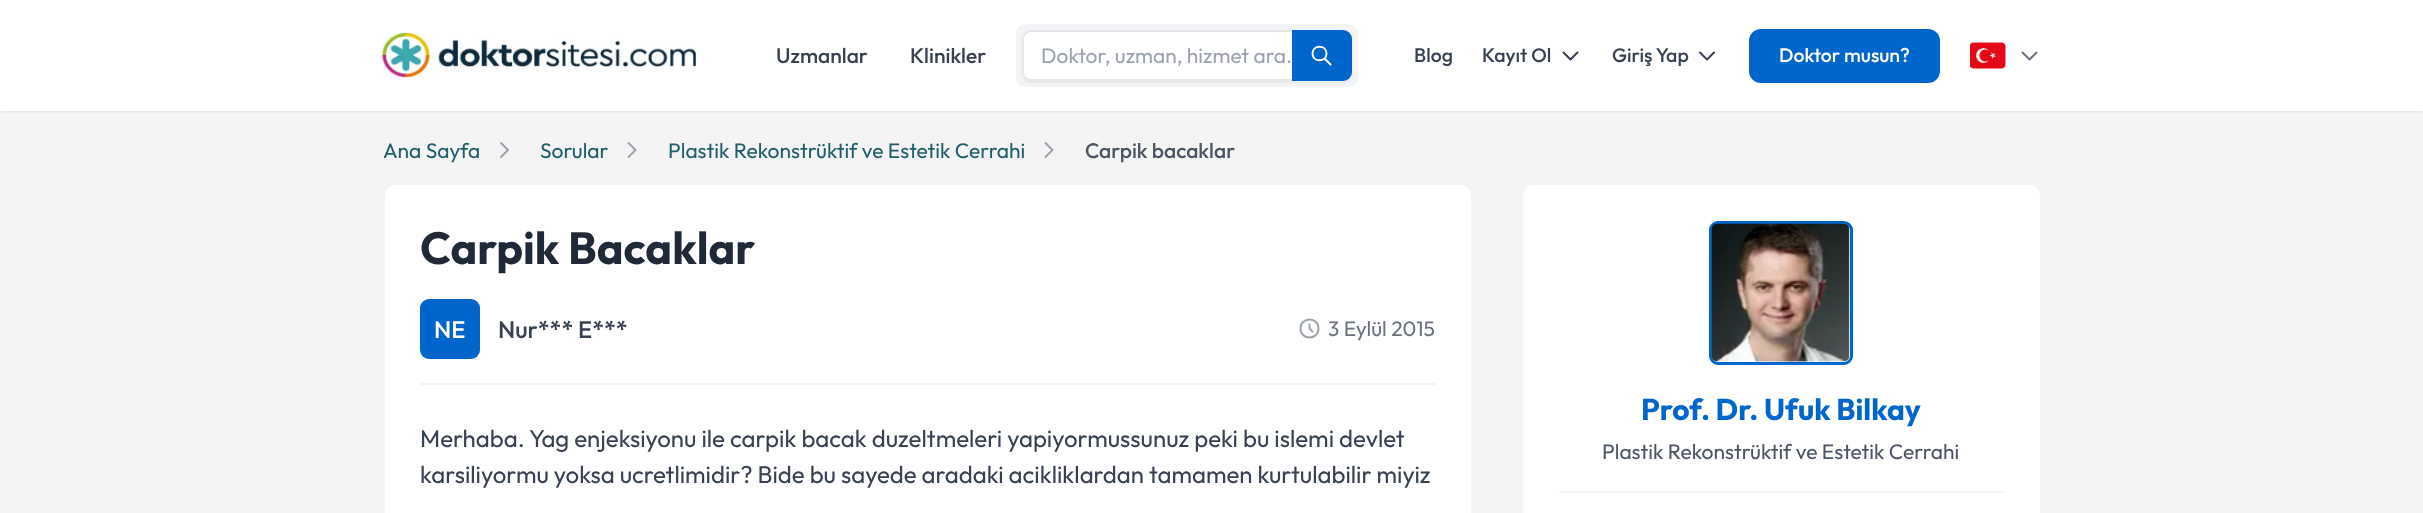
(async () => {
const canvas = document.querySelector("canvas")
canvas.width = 2423
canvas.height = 513
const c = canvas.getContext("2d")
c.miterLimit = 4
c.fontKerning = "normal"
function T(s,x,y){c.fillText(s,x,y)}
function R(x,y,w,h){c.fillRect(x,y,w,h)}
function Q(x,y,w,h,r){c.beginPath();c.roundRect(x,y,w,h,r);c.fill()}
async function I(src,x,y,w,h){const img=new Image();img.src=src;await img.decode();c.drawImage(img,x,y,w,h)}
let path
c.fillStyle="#fff"
R(0,0,2423,513)
c.fillStyle="#f4f4f4"
R(0,111,2423,402)
c.save()
c.beginPath()
c.rect(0,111,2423,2)
c.clip()
c.fillStyle="#0000000d"
c.filter="blur(1.5px)"
c.beginPath()
c.rect(0,2,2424,111)
c.fill()
c.filter="none"
c.restore()
await I("1.png",382,33,314,45)
c.font="500 21px Outfit"
c.fillStyle="#374151"
T("Uzmanlar",776,63)
T("Klinikler",910,63)
c.fillStyle="#f3f4f6"
Q(1016,24,342,63,9)
c.fillStyle="#0000000d"
c.filter="blur(1.5px)"
c.beginPath()
c.roundRect(1022,32,330,51,9)
c.fill()
c.filter="none"
c.fillStyle="#fff"
c.beginPath()
c.roundRect(1023,31,328,49,8)
c.fill()
c.strokeStyle="#e5e7eb"
c.lineWidth=2
c.stroke()
c.font="21px Outfit"
c.fillStyle="#9ca3af"
T("Doktor, uzman, hizmet ara.",1041,63)
c.fillStyle="#06c"
c.beginPath()
c.roundRect(1292,30,60,51,[0,9,9,0])
c.fill()
path = new Path2D("M1330.5 64.5l-6-6m2-5c0 9-14 9-14 0c0-9 14-9 14 0z")
c.strokeStyle="#fff"
c.lineCap="round"
c.lineJoin="round"
c.stroke(path)
c.font="500 19.5px Outfit"
c.fillStyle="#374151"
T("Blog",1414,62)
T("Kayıt Ol",1482,62)
path = new Path2D("M1577.5 52.5l-7 7l-7-7")
c.strokeStyle="#374151"
c.stroke(path)
T("Giriş Yap",1612,62)
path = new Path2D("M1714 52.5l-7 7l-7-7")
c.stroke(path)
c.fillStyle="#06c"
Q(1749,29,191,54,12)
c.fillStyle="#fff"
T("Doktor musun?",1779,62)
await I("2.png",1970,42,36,27)
path = new Path2D("M2036.5 52.5l-7 7l-7-7")
c.strokeStyle="#6b7280"
c.stroke(path)
c.font="21px Outfit"
c.fillStyle="#205e69"
T("Ana Sayfa",383,158)
path = new Path2D("M501 143l7 7l-7 7")
c.strokeStyle="#9ca3af"
c.stroke(path)
T("Sorular",540,158)
path = new Path2D("M628.5 143l7 7l-7 7")
c.stroke(path)
T("Plastik Rekonstrüktif ve Estetik Cerrahi",668,158)
path = new Path2D("M1045.5 143l7 7l-7 7")
c.stroke(path)
c.font="500 21px Outfit"
c.fillStyle="#4b5563"
T("Carpik bacaklar",1085,158)
c.fillStyle="#fff"
c.beginPath()
c.roundRect(384,184,1088,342,11)
c.fill()
c.strokeStyle="#f3f4f6"
c.lineJoin="miter"
c.stroke()
c.font="bold 45px Outfit"
c.fillStyle="#1f2937"
T("Carpik Bacaklar",420,264)
c.fillStyle="#f3f4f6"
R(420,383,1016,2)
c.fillStyle="#06c"
Q(420,299,60,60,9)
c.font="500 24px Outfit"
c.fillStyle="#fff"
T("NE",434,338)
c.fillStyle="#374151"
T("Nur*** E***",498,338)
path = new Path2D("M1309.5 324.5v4l3 3m6-3c0 12-18 12-18 0c0-12 18-12 18 0z")
c.strokeStyle="#9ca3af"
c.lineJoin="round"
c.stroke(path)
c.font="21px Outfit"
c.fillStyle="#6b7280"
T("3 Eylül 2015",1328,336)
c.font="24px Outfit"
c.fillStyle="#374151"
T("Merhaba. Yag enjeksiyonu ile carpik bacak duzeltmeleri yapiyormussunuz peki bu islemi devlet",420,447)
T("karsiliyormu yoksa ucretlimidir? Bide bu sayede aradaki acikliklardan tamamen kurtulabilir miyiz",420,483)
c.fillStyle="#fff"
c.beginPath()
c.roundRect(1522,184,519,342,11)
c.fill()
c.strokeStyle="#f3f4f6"
c.lineJoin="miter"
c.stroke()
c.beginPath()
c.roundRect(1710.5,222.5,141,141,7.5)
c.strokeStyle="#06c"
c.lineWidth=3
c.stroke()
await I("3.png",1711,223,139,139)
c.font="bold 30px Outfit"
c.fillStyle="#06c"
T("Prof. Dr. Ufuk Bilkay",1641,420)
c.font="21px Outfit"
c.fillStyle="#4b5563"
T("Plastik Rekonstrüktif ve Estetik Cerrahi",1602,459)
c.fillStyle="#f3f4f6"
R(1559,491,445,2)
})()
